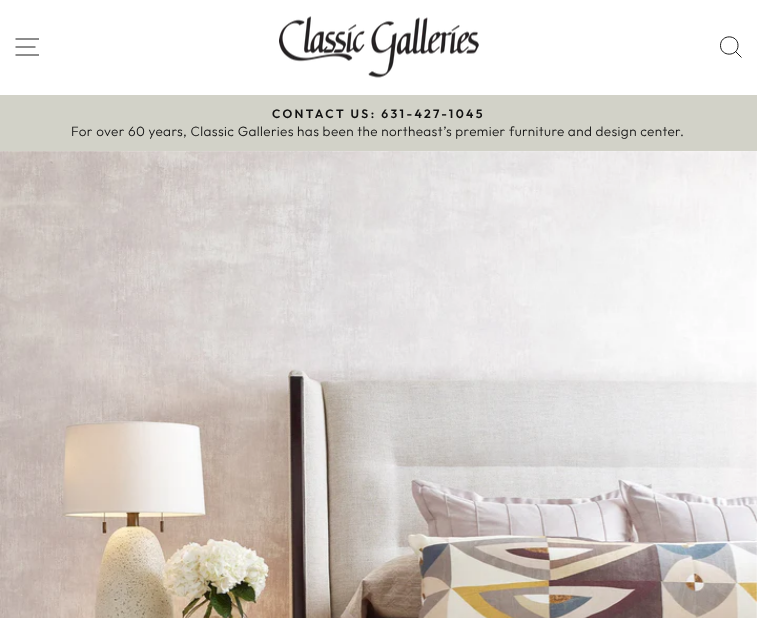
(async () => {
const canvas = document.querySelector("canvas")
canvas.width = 757
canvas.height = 618
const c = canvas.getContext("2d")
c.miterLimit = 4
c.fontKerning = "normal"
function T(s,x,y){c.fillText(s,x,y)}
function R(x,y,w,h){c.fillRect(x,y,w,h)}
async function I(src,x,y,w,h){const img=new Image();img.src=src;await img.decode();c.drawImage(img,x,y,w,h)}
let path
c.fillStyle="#fff"
R(0,0,757,618)
path = new Path2D("M15.5 39h23.5m-23.5 8h20m-20 8h23.5")
c.strokeStyle="#000"
c.lineWidth=0.9
c.stroke(path)
await I("1.png",279,16,200,62)
path = new Path2D("M738 45.5c0 11.5-17.5 11.5-17.5 0c0-11.5 17.5-11.5 17.5 0zm3.5 12l-6-6")
c.stroke(path)
c.fillStyle="#d2d2c8"
R(0,95,757,56)
c.letterSpacing="2.4px"
c.font="600 12.2px Outfit"
c.fillStyle="#111"
T("CONTACT US: 631-427-1045",272,118)
c.letterSpacing="0.4px"
c.font="300 13.5px Outfit"
T("For over 60 years, Classic Galleries has been the northeast’s premier furniture and design center.",71,136)
await I("2.png",0,151,757,467)
})()
